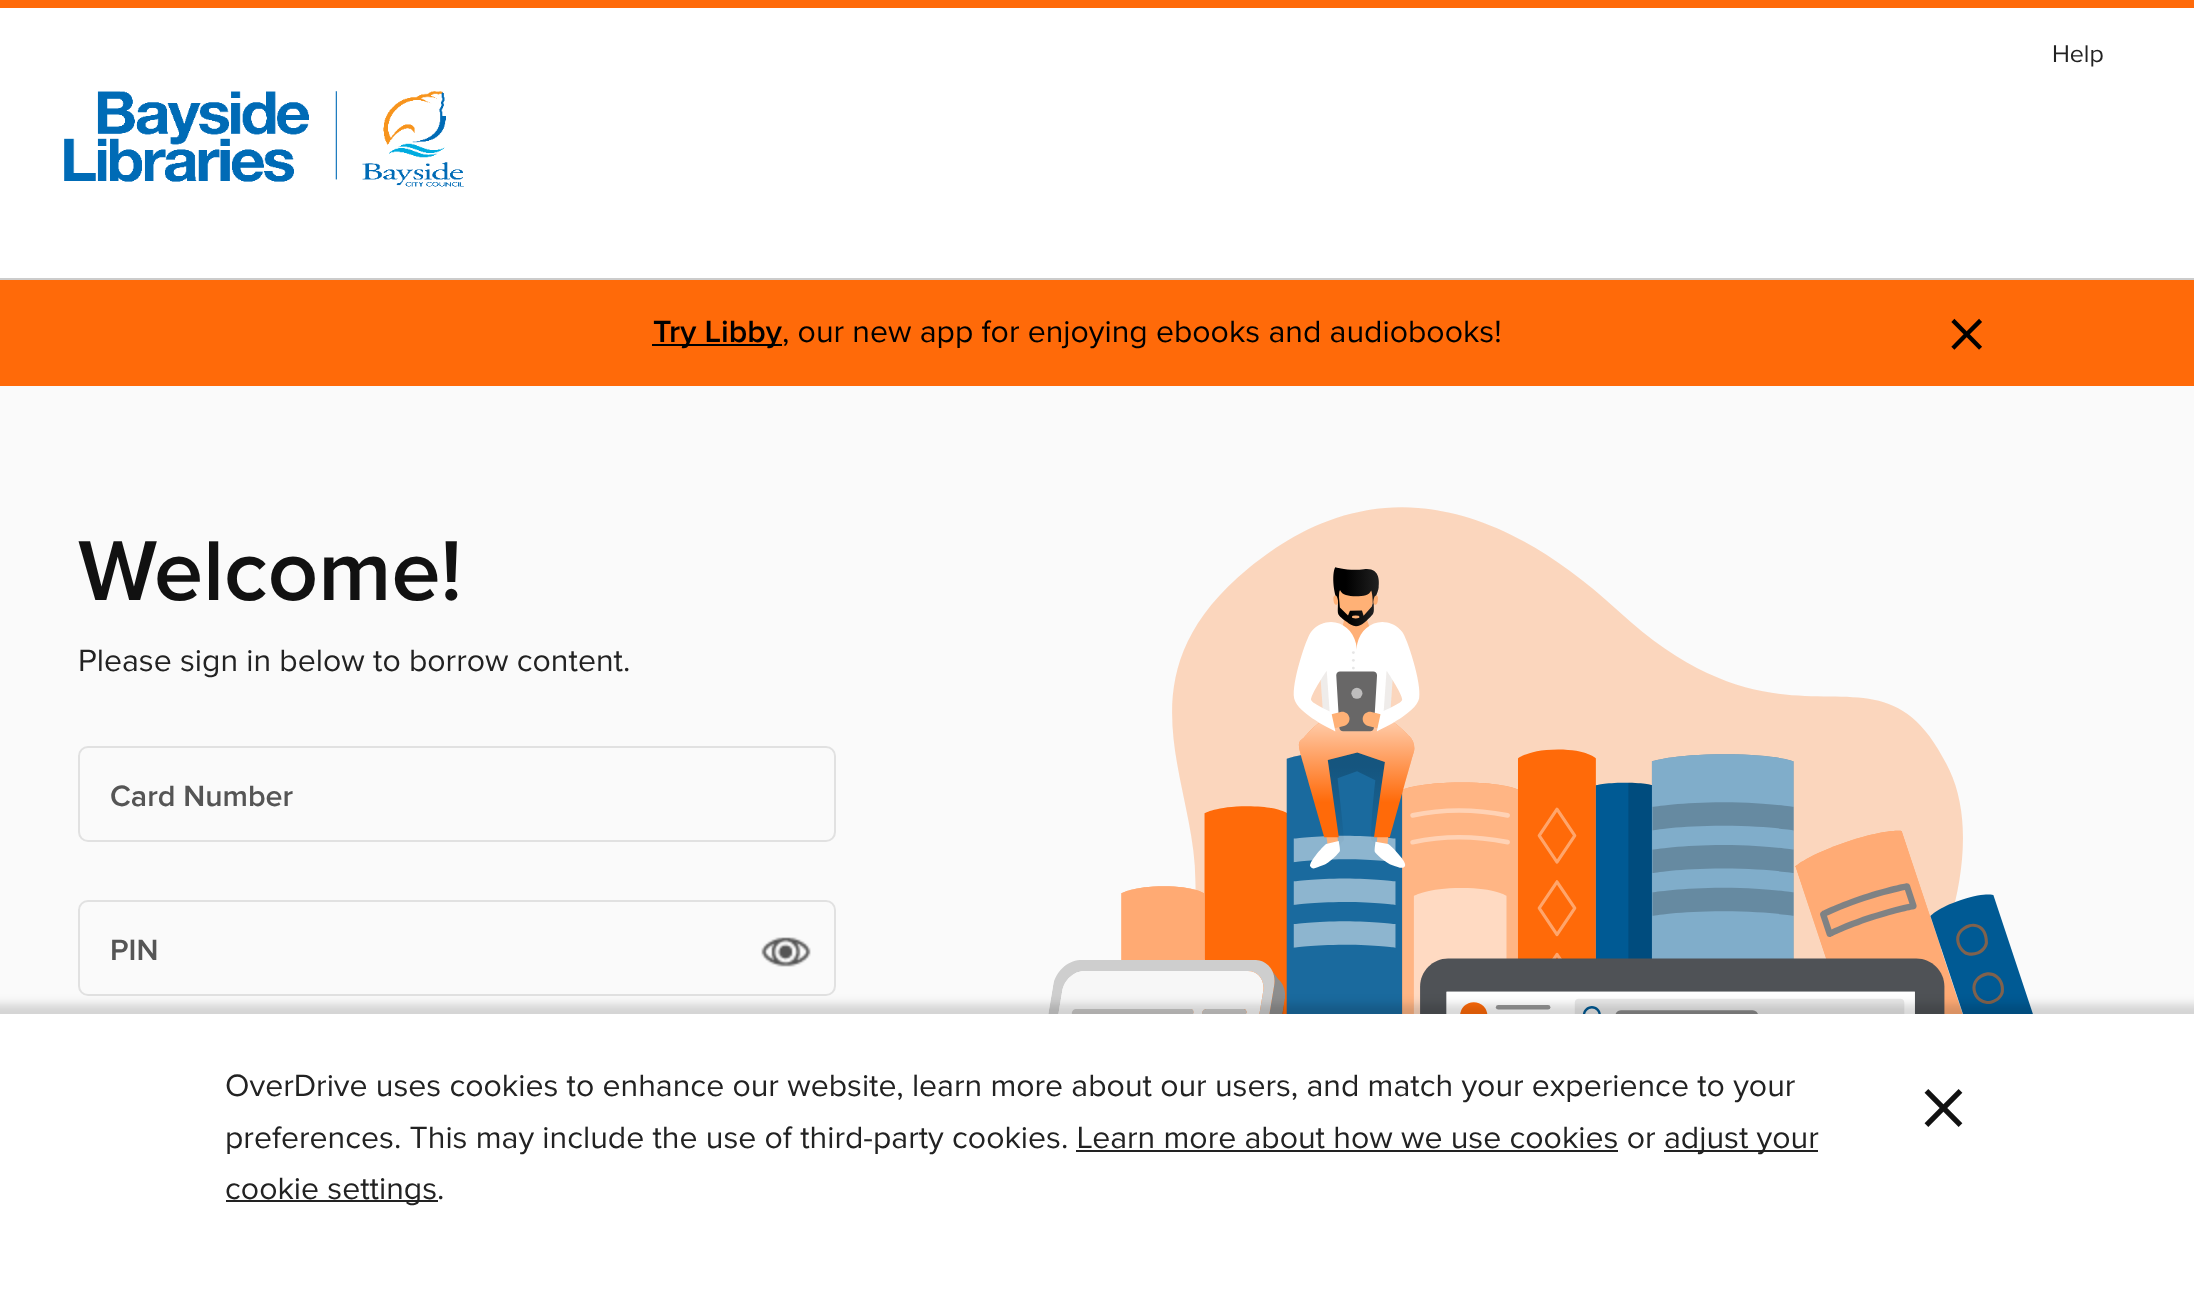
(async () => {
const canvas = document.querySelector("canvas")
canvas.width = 2194
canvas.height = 1303
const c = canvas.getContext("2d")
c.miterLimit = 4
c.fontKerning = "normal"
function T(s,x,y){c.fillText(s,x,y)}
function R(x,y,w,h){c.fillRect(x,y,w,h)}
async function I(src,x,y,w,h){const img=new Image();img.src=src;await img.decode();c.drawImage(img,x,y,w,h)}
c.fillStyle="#fafafa"
R(0,0,2194,1303)
c.fillStyle="#fff"
R(0,8,2194,270)
c.fillStyle="#ff6a09"
R(0,0,2194,8)
c.fillStyle="#ccc"
R(0,278,2194,2)
c.font="25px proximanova"
c.fillStyle="#222"
T("Help",2052,62)
await I("1.png",64,91,400,96)
c.fillStyle="#ff6a09"
R(0,280,2194,106)
c.fillStyle="#000"
R(652,344,130,2)
c.font="600 32px Proxima Nova"
T("Try Libby",653,342)
c.font="32px proximanova"
T(", our new app for enjoying ebooks and audiobooks!",782,342)
c.font="83px proximanova"
T("×",1946,362)
c.font="600 88px Proxima Nova"
c.fillStyle="#111"
T("Welcome!",78,600)
c.font="32px proximanova"
c.fillStyle="#222"
T("Please sign in below to borrow content.",78,671)
c.beginPath()
c.roundRect(79,747,756,94,9)
c.strokeStyle="#e1e1e1"
c.lineWidth=2
c.stroke()
c.font="600 30.5px Proxima Nova"
c.fillStyle="#555"
T("Card Number",110,806)
c.beginPath()
c.roundRect(79,901,756,94,9)
c.stroke()
T("PIN",110,960)
await I("2.png",761,937,50,30)
await I("3.png",1048,507,985,507)
c.fillStyle="#00000026"
c.filter="blur(5px)"
c.beginPath()
c.rect(-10,1004,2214,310)
c.fill()
c.filter="none"
c.fillStyle="#fff"
R(0,1014,2194,289)
c.font="32px proximanova"
c.fillStyle="#222"
T("OverDrive uses cookies to enhance our website, learn more about our users, and match your experience to your",225,1096)
T("preferences. This may include the use of third-party cookies. Learn more about how we use cookies or",225,1148)
R(1076,1150,542,2)
R(1664,1150,154,2)
T("adjust your",1664,1148)
R(226,1200,212,2)
T("cookie settings.",225,1199)
c.font="102px proximanova"
c.fillStyle="#111"
T("×",1918,1142)
})()
